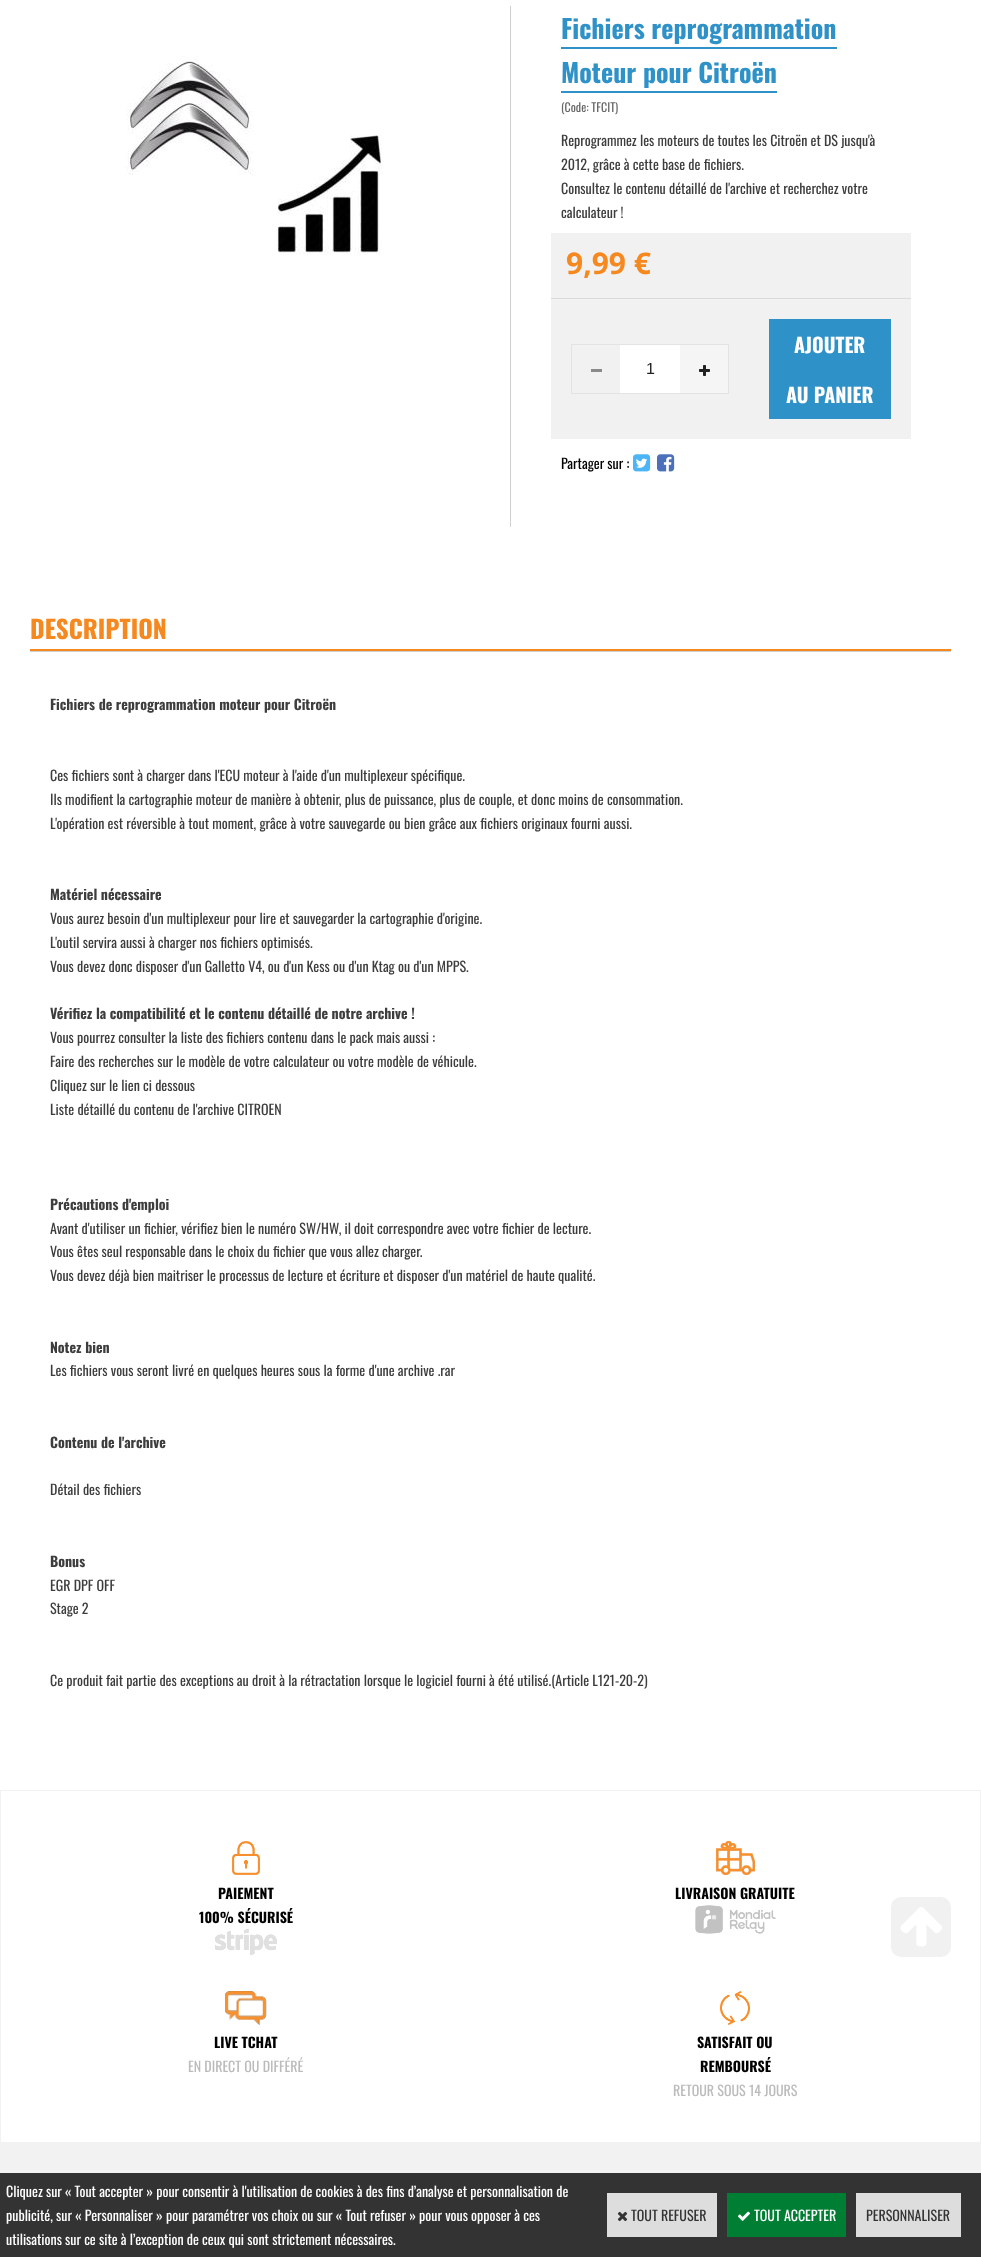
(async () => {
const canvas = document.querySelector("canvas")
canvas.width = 981
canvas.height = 2257
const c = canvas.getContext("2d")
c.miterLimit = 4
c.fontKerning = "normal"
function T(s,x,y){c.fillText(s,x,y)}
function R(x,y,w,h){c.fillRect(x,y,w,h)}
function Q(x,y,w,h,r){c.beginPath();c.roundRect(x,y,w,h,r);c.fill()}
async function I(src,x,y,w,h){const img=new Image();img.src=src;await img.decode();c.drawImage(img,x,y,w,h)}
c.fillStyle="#fff"
R(0,0,981,2257)
await I("1.png",126,56,256,199)
c.fillStyle="#d0d0d0"
R(510,6,1,521)
c.font="bold 26px Oswald"
c.fillStyle="#2e91c8"
T("Fichiers reprogrammation",561,39)
R(561,47,276,2)
T("Moteur pour Citroën",561,83)
R(561,91,216,2)
c.font="12px Oswald"
c.fillStyle="#686868"
T("(Code: TFCIT)",561,112)
c.font="14px Oswald"
c.fillStyle="#3d3d3d"
T("Reprogrammez les moteurs de toutes les Citroën et DS jusqu'à",561,146)
T("2012, grâce à cette base de fichiers.",561,170)
T("Consultez le contenu détaillé de l'archive et recherchez votre",561,194)
T("calculateur !",561,218)
c.fillStyle="#f1f1f1"
R(551,233,360,65)
c.fillStyle="#dbdbdb"
R(551,298,360,1)
c.font="bold 30px Open Sans"
c.fillStyle="#f68820"
T("9,99 €",566,274)
c.fillStyle="#f1f1f1"
R(551,299,360,140)
c.strokeStyle="#e3e3e3"
c.strokeRect(571.5,344.5,157,49)
c.fillStyle="#8a8a8a"
R(591,369,11,3)
c.fillStyle="#fff"
R(620,345,60,48)
c.font="16px Liberation Sans"
c.fillStyle="#212121"
T("1",646,374)
c.fillStyle="#f5f5f5"
R(680,345,48,48)
await I("2.png",699,365,11,11)
c.fillStyle="#2e91c8"
R(769,319,122,100)
c.font="bold 20px Oswald"
c.fillStyle="#fff"
T("AJOUTER",794,353)
T("AU PANIER",786,403)
c.font="14px Oswald"
c.fillStyle="#000"
T("Partager sur :",561,469)
await I("3.png",633,454,18,18)
await I("4.png",657,454,18,18)
c.fillStyle="#f68820"
R(30,649,921,2)
c.font="bold 25px Oswald"
T("DESCRIPTION",30,639)
c.fillStyle="#d0d0d0"
R(30,651,921,1)
c.font="bold 14px Oswald"
c.fillStyle="#3d3d3d"
T("Fichiers de reprogrammation moteur pour Citroën",50,710)
c.font="14px Oswald"
T("Ces fichiers sont à charger dans l'ECU moteur à l'aide d'un multiplexeur spécifique.",50,781)
T("Ils modifient la cartographie moteur de manière à obtenir, plus de puissance, plus de couple, et donc moins de consommation.",50,805)
T("L'opération est réversible à tout moment, grâce à votre sauvegarde ou bien grâce aux fichiers originaux fourni aussi.",50,829)
c.font="bold 14px Oswald"
T("Matériel nécessaire",50,900)
c.font="14px Oswald"
T("Vous aurez besoin d'un multiplexeur pour lire et sauvegarder la cartographie d'origine.",50,924)
T("L'outil servira aussi à charger nos fichiers optimisés.",50,948)
T("Vous devez donc disposer d'un Galletto V4, ou d'un Kess ou d'un Ktag ou d'un MPPS.",50,972)
c.font="bold 14px Oswald"
T("Vérifiez la compatibilité et le contenu détaillé de notre archive !",50,1019)
c.font="14px Oswald"
T("Vous pourrez consulter la liste des fichiers contenu dans le pack mais aussi :",50,1043)
T("Faire des recherches sur le modèle de votre calculateur ou votre modèle de véhicule.",50,1067)
T("Cliquez sur le lien ci dessous",50,1091)
T("Liste détaillé du contenu de l'archive CITROEN",50,1115)
c.font="bold 14px Oswald"
T("Précautions d'emploi",50,1210)
c.font="14px Oswald"
T("Avant d'utiliser un fichier, vérifiez bien le numéro SW/HW, il doit correspondre avec votre fichier de lecture.",50,1234)
T("Vous êtes seul responsable dans le choix du fichier que vous allez charger.",50,1257)
T("Vous devez déjà bien maitriser le processus de lecture et écriture et disposer d'un matériel de haute qualité.",50,1281)
c.font="bold 14px Oswald"
T("Notez bien",50,1353)
c.font="14px Oswald"
T("Les fichiers vous seront livré en quelques heures sous la forme d'une archive .rar",50,1376)
c.font="bold 14px Oswald"
T("Contenu de l'archive",50,1448)
c.font="14px Oswald"
T("Détail des fichiers",50,1495)
c.font="bold 14px Oswald"
T("Bonus",50,1567)
c.font="14px Oswald"
T("EGR DPF OFF",50,1591)
T("Stage 2",50,1614)
T("Ce produit fait partie des exceptions au droit à la rétractation lorsque le logiciel fourni à été utilisé.(Article L121-20-2)",50,1686)
c.strokeStyle="#f2f2f2"
c.strokeRect(.5,1790.5,980,352)
await I("5.png",232,1841,28,34)
c.font="bold 14px Oswald"
c.fillStyle="#000"
T("PAIEMENT",218,1899)
T("100% SÉCURISÉ",199,1923)
await I("6.png",215,1929,62,26)
await I("7.png",716,1841,39,34)
T("LIVRAISON GRATUITE",675,1899)
await I("8.png",695,1905,81,29)
await I("9.png",225,1991,42,34)
T("LIVE TCHAT",214,2048)
c.font="14px Oswald"
c.fillStyle="#bbb"
T("EN DIRECT OU DIFFÉRÉ",188,2072)
await I("10.png",720,1991,30,34)
c.font="bold 14px Oswald"
c.fillStyle="#000"
T("SATISFAIT OU",697,2048)
T("REMBOURSÉ",700,2072)
c.font="14px Oswald"
c.fillStyle="#bbb"
T("RETOUR SOUS 14 JOURS",673,2096)
c.fillStyle="#f2f2f2"
R(0,2143,981,30)
c.fillStyle="#f1f1f1"
Q(891,1897,60,60,10)
await I("11.png",900,1907,42,40)
c.fillStyle="#333"
R(0,2173,981,84)
c.fillStyle="#fff"
T("Cliquez sur « Tout accepter » pour consentir à l'utilisation de cookies à des fins d’analyse et personnalisation de",6,2197)
T("publicité, sur « Personnaliser » pour paramétrer vos choix ou sur « Tout refuser » pour vous opposer à ces",6,2221)
T("utilisations sur ce site à l’exception de ceux qui sont strictement nécessaires.",6,2245)
c.fillStyle="#ddd"
R(607,2193,110,44)
await I("12.png",617,2211,11,11)
c.fillStyle="#333"
T("TOUT REFUSER",631,2221)
c.fillStyle="#007e33"
R(727,2193,119,44)
await I("13.png",738,2211,12,10)
c.fillStyle="#fff"
T("TOUT ACCEPTER",754,2221)
c.fillStyle="#ddd"
R(856,2193,105,44)
c.fillStyle="#333"
T("PERSONNALISER",866,2221)
})()
